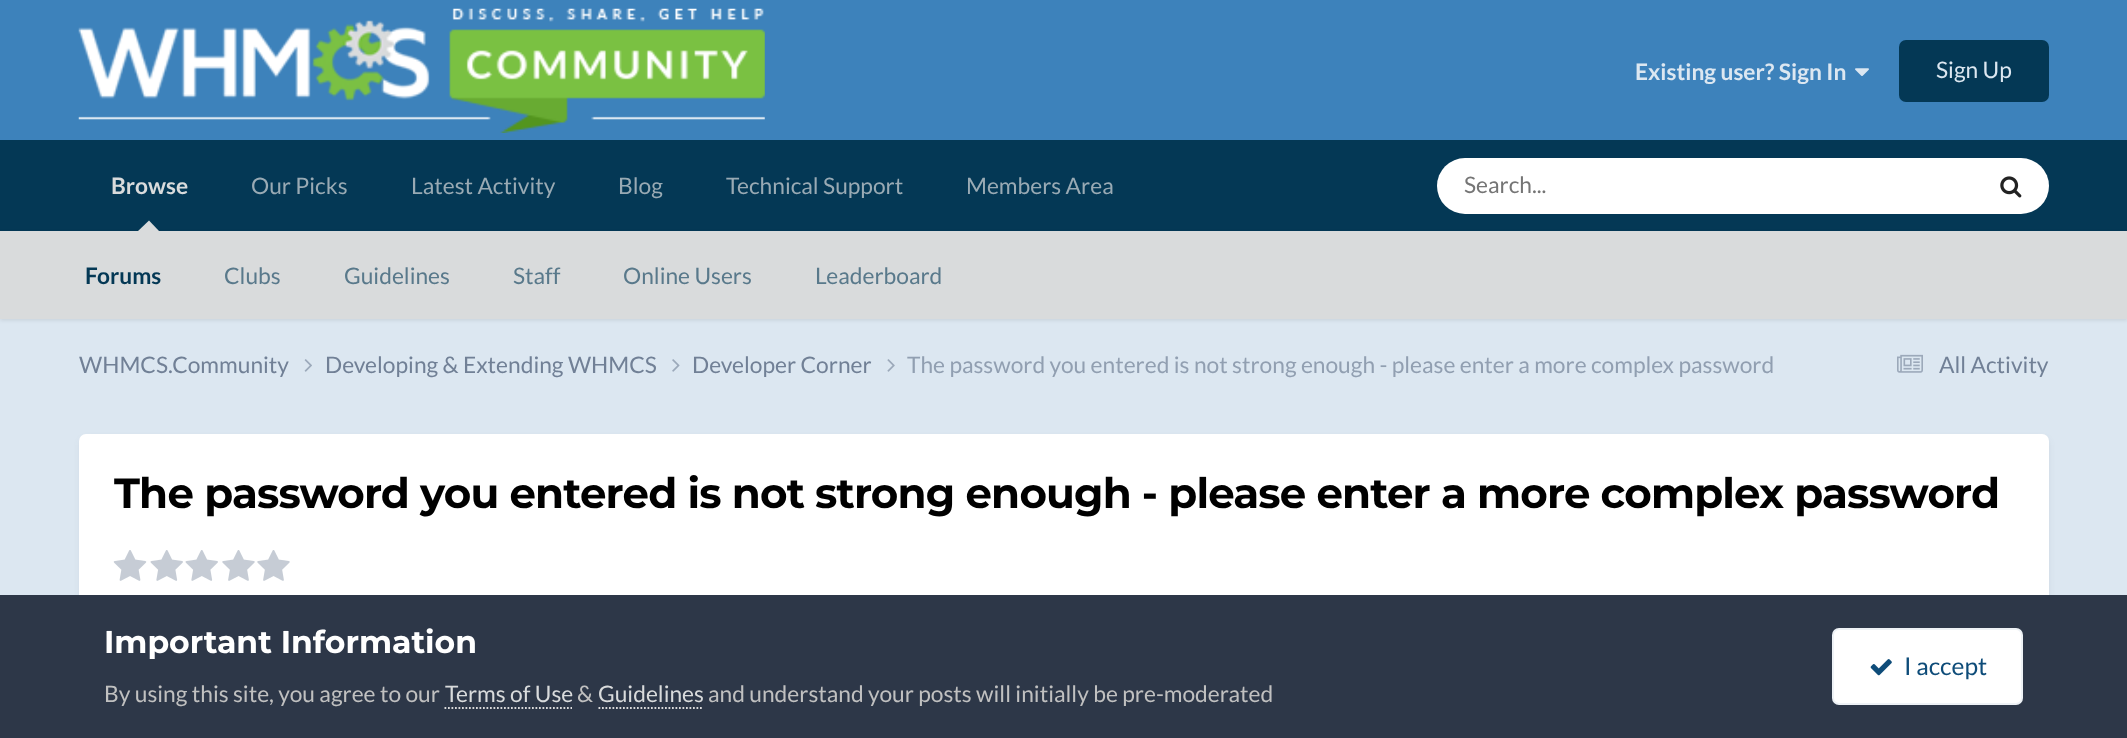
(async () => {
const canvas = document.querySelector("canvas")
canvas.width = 2127
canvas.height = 738
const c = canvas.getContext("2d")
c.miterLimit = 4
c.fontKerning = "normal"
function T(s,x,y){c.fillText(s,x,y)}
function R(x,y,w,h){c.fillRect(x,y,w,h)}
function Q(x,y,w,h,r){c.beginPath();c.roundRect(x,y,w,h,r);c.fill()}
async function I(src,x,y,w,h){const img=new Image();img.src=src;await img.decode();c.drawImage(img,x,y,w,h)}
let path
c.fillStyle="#dce7f1"
R(0,0,2127,738)
c.fillStyle="#3d82bb"
R(0,0,2127,140)
await I("1.png",78,8,687,125)
c.font="bold 22.75px Lato"
c.fillStyle="#dce7f1"
T("Existing user? Sign In",1635,80)
await I("2.png",1855,68,14,8)
c.fillStyle="#043855"
Q(1899,40,150,62,7)
c.font="22.75px Lato"
c.fillStyle="#dce7f1"
T("Sign Up",1936,78)
c.fillStyle="#043855"
R(0,140,2127,91)
c.font="bold 22.75px Lato"
c.fillStyle="#d9dbdc"
T("Browse",111,194)
c.fillStyle="#0000001a"
c.filter="blur(2px)"
c.beginPath()
c.rect(0,233,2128,87)
c.fill()
c.filter="none"
c.fillStyle="#d9dbdc"
path = new Path2D("M159 231h-21l11-10.5z")
c.fill(path)
R(0,231,2127,88)
c.fillStyle="#043855"
T("Forums",85,284)
c.font="22.75px Lato"
c.fillStyle="#59798b"
T("Clubs",224,284)
T("Guidelines",344,284)
T("Staff",513,284)
T("Online Users",623,284)
T("Leaderboard",815,284)
c.fillStyle="#99aab4"
T("Our Picks",251,194)
T("Latest Activity",411,194)
T("Blog",618,194)
T("Technical Support",726,194)
T("Members Area",966,194)
c.fillStyle="#fff"
Q(1437,158,612,56,28)
c.fillStyle="#757575"
T("Search...",1464,193)
await I("3.png",2000,176,22,22)
c.fillStyle="#718096"
T("WHMCS.Community",79,373)
await I("4.png",304,359,8,13)
T("Developing & Extending WHMCS",325,373)
await I("5.png",672,359,8,13)
T("Developer Corner",692,373)
await I("6.png",887,359,8,13)
c.fillStyle="#919fb1"
T("The password you entered is not strong enough - please enter a more complex password",907,373)
await I("7.png",1897,354,26,19)
c.fillStyle="#718096"
T("All Activity",1939,373)
c.fillStyle="#2d37481a"
c.filter="blur(3.5px)"
c.beginPath()
c.roundRect(81,439,1967,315,5)
c.fill()
c.filter="none"
c.fillStyle="#fff"
Q(79,434,1970,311,7)
c.letterSpacing="-0.85px"
c.font="bold 42px Montserrat"
c.fillStyle="#000"
T("The password you entered is not strong enough - please enter a more complex password",114,508)
await I("8.png",113,550,34,31)
await I("9.png",150,550,33,31)
await I("9.png",185,550,33,31)
await I("10.png",222,550,33,31)
await I("10.png",257,550,33,31)
c.fillStyle="#2d3748"
R(0,595,2127,143)
c.letterSpacing="0px"
c.font="bold 31.5px Montserrat"
c.fillStyle="#fff"
T("Important Information",104,653)
c.font="22.75px Lato"
c.fillStyle="#c0c0c0"
T("By using this site, you agree to our",104,702)
c.fillStyle="#d9dbdc"
T("Terms of Use",445,702)
path = new Path2D("M444.5 708h127.5")
c.strokeStyle="#dadada"
c.lineWidth=1.8
c.setLineDash([1.75,1.75])
c.stroke(path)
c.fillStyle="#c0c0c0"
T("&",577,702)
c.fillStyle="#d9dbdc"
T("Guidelines",598,702)
path = new Path2D("M598.5 708h105")
c.stroke(path)
c.fillStyle="#c0c0c0"
T("and understand your posts will initially be pre-moderated",708,702)
c.fillStyle="#fff"
Q(1832,628,191,77,7)
c.beginPath()
c.roundRect(1833,629,189,75,6)
c.strokeStyle="#0e4c7912"
c.lineWidth=2
c.setLineDash([])
c.stroke()
await I("11.png",1870,659,22,17)
c.font="24.5px Lato"
c.fillStyle="#0e4c79"
T("I accept",1904,675)
})()
